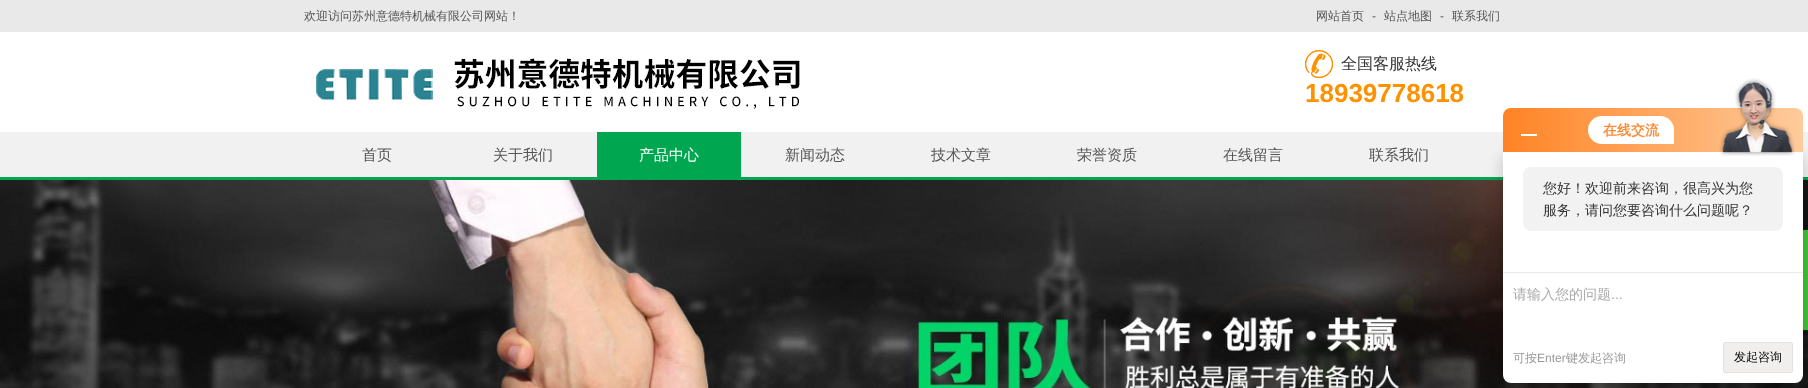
(async () => {
const canvas = document.querySelector("canvas")
canvas.width = 1808
canvas.height = 388
const c = canvas.getContext("2d")
c.miterLimit = 4
c.fontKerning = "normal"
function T(s,x,y){c.fillText(s,x,y)}
function R(x,y,w,h){c.fillRect(x,y,w,h)}
function Q(x,y,w,h,r){c.beginPath();c.roundRect(x,y,w,h,r);c.fill()}
async function I(src,x,y,w,h){const img=new Image();img.src=src;await img.decode();c.drawImage(img,x,y,w,h)}
let gradient
c.fillStyle="#fff"
R(0,0,1808,388)
c.fillStyle="#e9e9e9"
R(0,0,1808,32)
c.font="500 12px WenQuanYi Zen Hei"
c.fillStyle="#555"
T("欢迎访问苏州意德特机械有限公司网站！",304,20)
T("网站首页",1316,20)
c.font="12px Liberation Sans"
T("-",1372,20)
c.font="500 12px WenQuanYi Zen Hei"
T("站点地图",1384,20)
c.font="12px Liberation Sans"
T("-",1440,20)
c.font="500 12px WenQuanYi Zen Hei"
T("联系我们",1452,20)
await I("1.png",316,58,484,51)
await I("2.png",1305,50,28,28)
c.font="500 16px WenQuanYi Zen Hei"
c.fillStyle="#333"
T("全国客服热线",1341,69)
c.font="bold 26px Liberation Sans"
c.fillStyle="#fe9100"
T("18939778618",1305,102)
c.fillStyle="#f1f1f1"
R(0,132,1808,45)
c.fillStyle="#00a650"
R(0,177,1808,3)
c.font="500 15px WenQuanYi Zen Hei"
c.fillStyle="#555"
T("首页",362,160)
T("关于我们",493,160)
c.fillStyle="#00a650"
R(597,132,144,45)
c.fillStyle="#fff"
T("产品中心",639,160)
c.fillStyle="#555"
T("新闻动态",785,160)
T("技术文章",931,160)
T("荣誉资质",1077,160)
T("在线留言",1223,160)
T("联系我们",1369,160)
await I("4.png",0,180,1808,208)
await I("5.png",1803,230,5,100)
c.fillStyle="#00000033"
c.filter="blur(8px)"
c.beginPath()
c.roundRect(1503,156,300,231,8)
c.fill()
c.filter="none"
gradient = c.createLinearGradient(1503,130,1803,130)
gradient.addColorStop(0,"#ff8324")
gradient.addColorStop(1,"#fecb9c")
c.fillStyle = gradient
c.beginPath()
c.roundRect(1503,108,300,44,[8,8,0,0])
c.fill()
c.fillStyle="#fff"
R(1521,134,16,2)
c.beginPath()
c.roundRect(1588,116,86,28,[14,14,0,14])
c.fill()
c.font="bold 14px WenQuanYi Zen Hei"
c.fillStyle="#fb8b36"
T("在线交流",1603,135)
c.fillStyle="#fff"
c.beginPath()
c.roundRect(1503,152,300,231,[0,0,8,8])
c.fill()
await I("3.png",1719,78,76,78)
c.fillStyle="#f2f2f2"
Q(1523,167,260,64,8)
c.font="500 14px WenQuanYi Zen Hei"
c.fillStyle="#333"
T("您好！欢迎前来咨询，很高兴为您",1543,193)
T("服务，请问您要咨询什么问题呢？",1543,215)
c.fillStyle="#eaeaea"
R(1503,272,300,1)
c.fillStyle="#aaa"
T("请输入您的问题",1513,299)
c.font="14px Liberation Sans"
T("...",1611,299)
c.font="500 12px WenQuanYi Zen Hei"
c.fillStyle="#999"
T("可按",1513,362)
c.font="12px Liberation Sans"
T("Enter",1537,362)
c.font="500 12px WenQuanYi Zen Hei"
T("键发起咨询",1566,362)
c.fillStyle="#f0efed"
c.beginPath()
c.roundRect(1723.5,342.5,69,30,1.5)
c.fill()
c.strokeStyle="#e2e2e2"
c.stroke()
c.fillStyle="#000"
T("发起咨询",1734,361)
})()
